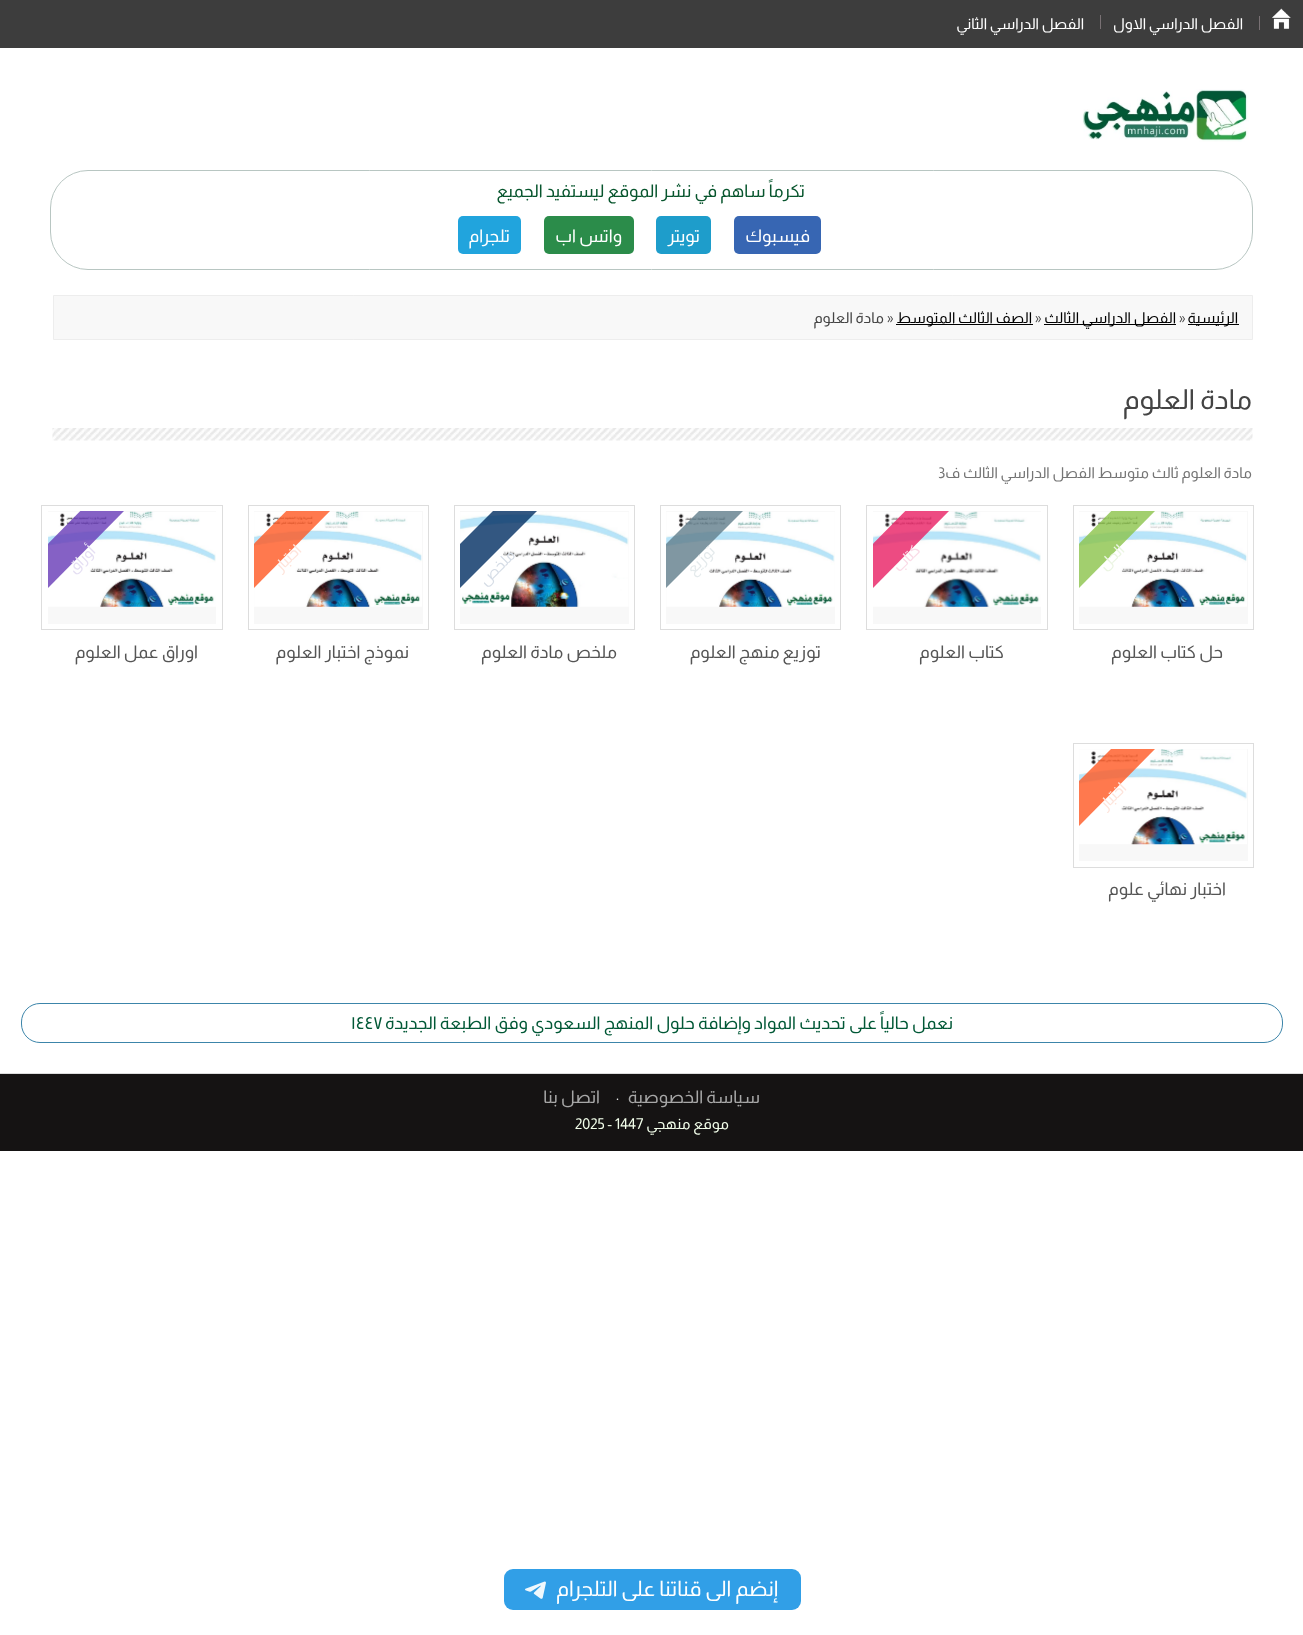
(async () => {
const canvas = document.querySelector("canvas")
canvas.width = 1303
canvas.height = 1635
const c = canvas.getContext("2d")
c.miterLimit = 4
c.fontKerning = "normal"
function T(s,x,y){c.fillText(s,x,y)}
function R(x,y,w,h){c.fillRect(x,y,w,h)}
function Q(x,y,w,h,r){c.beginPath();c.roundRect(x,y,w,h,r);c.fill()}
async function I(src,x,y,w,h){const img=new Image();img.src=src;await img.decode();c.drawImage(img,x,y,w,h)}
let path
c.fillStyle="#fff"
R(0,0,1303,1635)
c.fillStyle="#3d3d3d"
R(0,0,1303,48)
await I("1.png",1272,8,19,21)
c.fillStyle="#797174"
R(1259,16,1,14)
c.direction="rtl"
c.font="15px Almarai"
c.fillStyle="#fff"
T("الفصل الدراسي الاول",1243,29)
c.fillStyle="#797174"
R(1100,15,1,14)
c.fillStyle="#fff"
T("الفصل الدراسي الثاني",1084,29)
await I("2.png",1082,89,167,53)
c.beginPath()
c.roundRect(50.5,170.5,1202,99,37.5)
c.strokeStyle="#b8c6c2"
c.stroke()
c.font="17.5px Almarai"
c.fillStyle="#07552d"
T("تكرماً ساهم في نشر الموقع ليستفيد الجميع",805,197)
c.fillStyle="#3766b3"
Q(734,216,87,38,5)
c.fillStyle="#fff"
T("فيسبوك",810,242)
c.fillStyle="#1e9dcb"
Q(656,216,55,38,5)
c.fillStyle="#fff"
T("تويتر",700,242)
c.fillStyle="#2b8c4a"
Q(544,216,90,38,5)
c.fillStyle="#fff"
T("واتس اب",622,242)
c.fillStyle="#21a4dd"
Q(458,216,63,38,5)
c.fillStyle="#fff"
T("تلجرام",510,242)
c.fillStyle="#f8f8f8"
c.beginPath()
c.rect(53.5,295.5,1199,44)
c.fill()
c.strokeStyle="#ededed"
c.stroke()
c.fillStyle="#000"
R(1188,324,51,1)
c.font="15px Almarai"
T("الرئيسية",1238,323)
c.direction="ltr"
c.fillStyle="#444"
T("»",1179,323)
c.fillStyle="#000"
R(1044,324,132,1)
c.direction="rtl"
T("الفصل الدراسي الثالث",1176,323)
c.direction="ltr"
c.fillStyle="#444"
T("»",1035,323)
c.fillStyle="#000"
R(896,324,137,1)
c.direction="rtl"
T("الصف الثالث المتوسط",1032,323)
c.direction="ltr"
c.fillStyle="#444"
T("»",887,323)
c.direction="rtl"
T("مادة العلوم",884,323)
await I("3.png",52,428,1201,13)
c.font="27.5px Almarai"
T("مادة العلوم",1252,409)
c.font="15px Almarai"
c.fillStyle="#757575"
T("مادة العلوم ثالث متوسط الفصل الدراسي الثالث ف",1252,478)
c.direction="ltr"
T("3",938,478)
c.fillStyle="#f8f8f8"
R(1079,511,169,113)
await I("4.png",1079,511,168,96)
c.strokeStyle="#ddd"
c.strokeRect(1073.5,505.5,180,124)
c.save()
c.beginPath()
c.rect(1079,511,169,113)
c.clip()
c.fillStyle="#8bc34acc"
path = new Path2D("M1055 568l79-80l22 22l-79 80z")
c.fill(path)
c.restore()
c.direction="rtl"
c.fillStyle="#ebf5e2"
c.save()
c.translate(1125,551)
c.rotate(-45 * Math.PI / 180)
c.fillText("الحل",0,0)
c.restore()
c.font="17.5px Almarai"
c.fillStyle="#555"
T("حل كتاب العلوم",1223,658)
c.fillStyle="#f8f8f8"
R(873,511,168,113)
await I("5.png",873,511,168,96)
c.strokeRect(866.5,505.5,181,124)
c.save()
c.beginPath()
c.rect(873,511,168,113)
c.clip()
c.fillStyle="#e91e63cc"
path = new Path2D("M849 568l79-80l22 22l-79 80z")
c.fill(path)
c.restore()
c.font="15px Almarai"
c.fillStyle="#fadae6"
c.save()
c.translate(921,551)
c.rotate(-45 * Math.PI / 180)
c.fillText("كتاب",0,0)
c.restore()
c.font="17.5px Almarai"
c.fillStyle="#555"
T("كتاب العلوم",1004,658)
c.fillStyle="#f8f8f8"
R(666,511,169,113)
await I("6.png",666,511,169,96)
c.strokeRect(660.5,505.5,180,124)
c.save()
c.beginPath()
c.rect(666,511,169,113)
c.clip()
c.fillStyle="#607d8bcc"
path = new Path2D("M642 568l80-80l22 22l-80 80z")
c.fill(path)
c.restore()
c.font="15px Almarai"
c.fillStyle="#e4eaec"
c.save()
c.translate(716,552)
c.rotate(-45 * Math.PI / 180)
c.fillText("توزيع",0,0)
c.restore()
c.font="17.5px Almarai"
c.fillStyle="#555"
T("توزيع منهج العلوم",821,658)
c.fillStyle="#f8f8f8"
R(460,511,169,113)
await I("7.png",460,512,169,95)
c.strokeRect(454.5,505.5,180,124)
c.save()
c.beginPath()
c.rect(460,511,169,113)
c.clip()
c.fillStyle="#002d61cc"
path = new Path2D("M436 568l80-80l22 22l-80 80z")
c.fill(path)
c.restore()
c.font="15px Almarai"
c.fillStyle="#d6dde6"
c.save()
c.translate(516,556)
c.rotate(-45 * Math.PI / 180)
c.fillText("ملخص",0,0)
c.restore()
c.font="17.5px Almarai"
c.fillStyle="#555"
T("ملخص مادة العلوم",617,658)
c.fillStyle="#f8f8f8"
R(254,511,169,113)
await I("8.png",254,511,168,96)
c.strokeRect(248.5,505.5,180,124)
c.save()
c.beginPath()
c.rect(254,511,169,113)
c.clip()
c.fillStyle="#ff5722cc"
path = new Path2D("M230 568l79-80l22 22l-79 80z")
c.fill(path)
c.restore()
c.font="15px Almarai"
c.fillStyle="#fee4db"
c.save()
c.translate(302,551)
c.rotate(-45 * Math.PI / 180)
c.fillText("اختبار",0,0)
c.restore()
c.font="17.5px Almarai"
c.fillStyle="#555"
T("نموذج اختبار العلوم",409,658)
c.fillStyle="#f8f8f8"
R(48,511,168,113)
await I("9.png",48,511,168,96)
c.strokeRect(41.5,505.5,181,124)
c.save()
c.beginPath()
c.rect(48,511,168,113)
c.clip()
c.fillStyle="#673ab7cc"
path = new Path2D("M24 568l79-80l22 22l-79 80z")
c.fill(path)
c.restore()
c.font="15px Almarai"
c.fillStyle="#e5dff3"
c.save()
c.translate(96,552)
c.rotate(-45 * Math.PI / 180)
c.fillText("أوراق",0,0)
c.restore()
c.font="17.5px Almarai"
c.fillStyle="#555"
T("اوراق عمل العلوم",198,658)
c.fillStyle="#f8f8f8"
R(1079,749,169,112)
await I("10.png",1079,749,168,96)
c.strokeRect(1073.5,743.5,180,124)
c.save()
c.beginPath()
c.rect(1079,749,169,112)
c.clip()
c.fillStyle="#ff5722cc"
path = new Path2D("M1055 805l79-79l22 22l-79 80z")
c.fill(path)
c.restore()
c.font="15px Almarai"
c.fillStyle="#fee4db"
c.save()
c.translate(1127,789)
c.rotate(-45 * Math.PI / 180)
c.fillText("اختبار",0,0)
c.restore()
c.font="17.5px Almarai"
c.fillStyle="#555"
T("اختبار نهائي علوم",1226,895)
c.fillStyle="#319fe7"
Q(504,1569,297,41,9)
c.font="21.25px Almarai"
c.fillStyle="#fff"
T("إنضم الى قناتنا على التلجرام",778,1596)
await I("11.png",525,1581,21,18)
c.beginPath()
c.roundRect(21.5,1003.5,1261,39,18.5)
c.strokeStyle="#3c85aa"
c.stroke()
c.font="17.5px Almarai"
c.fillStyle="#015836"
T("نعمل حالياً على تحديث المواد وإضافة حلول المنهج السعودي وفق الطبعة الجديدة",953,1029)
c.direction="ltr"
T("١٤٤٧",351,1029)
c.fillStyle="#151313"
R(0,1074,1303,77)
c.fillStyle="#ddd"
R(0,1073,1303,1)
c.direction="rtl"
c.fillStyle="#a7a7a7"
T("سياسة الخصوصية",760,1103)
c.direction="ltr"
c.font="15px Almarai"
c.fillStyle="#eee"
T(".",616,1100)
c.direction="rtl"
c.font="17.5px Almarai"
c.fillStyle="#a7a7a7"
T("اتصل بنا",600,1103)
c.font="15px Almarai"
c.fillStyle="#f3ffeb"
T("موقع منهجي",729,1129)
c.direction="ltr"
T("2025 - 1447",575,1129)
})()
